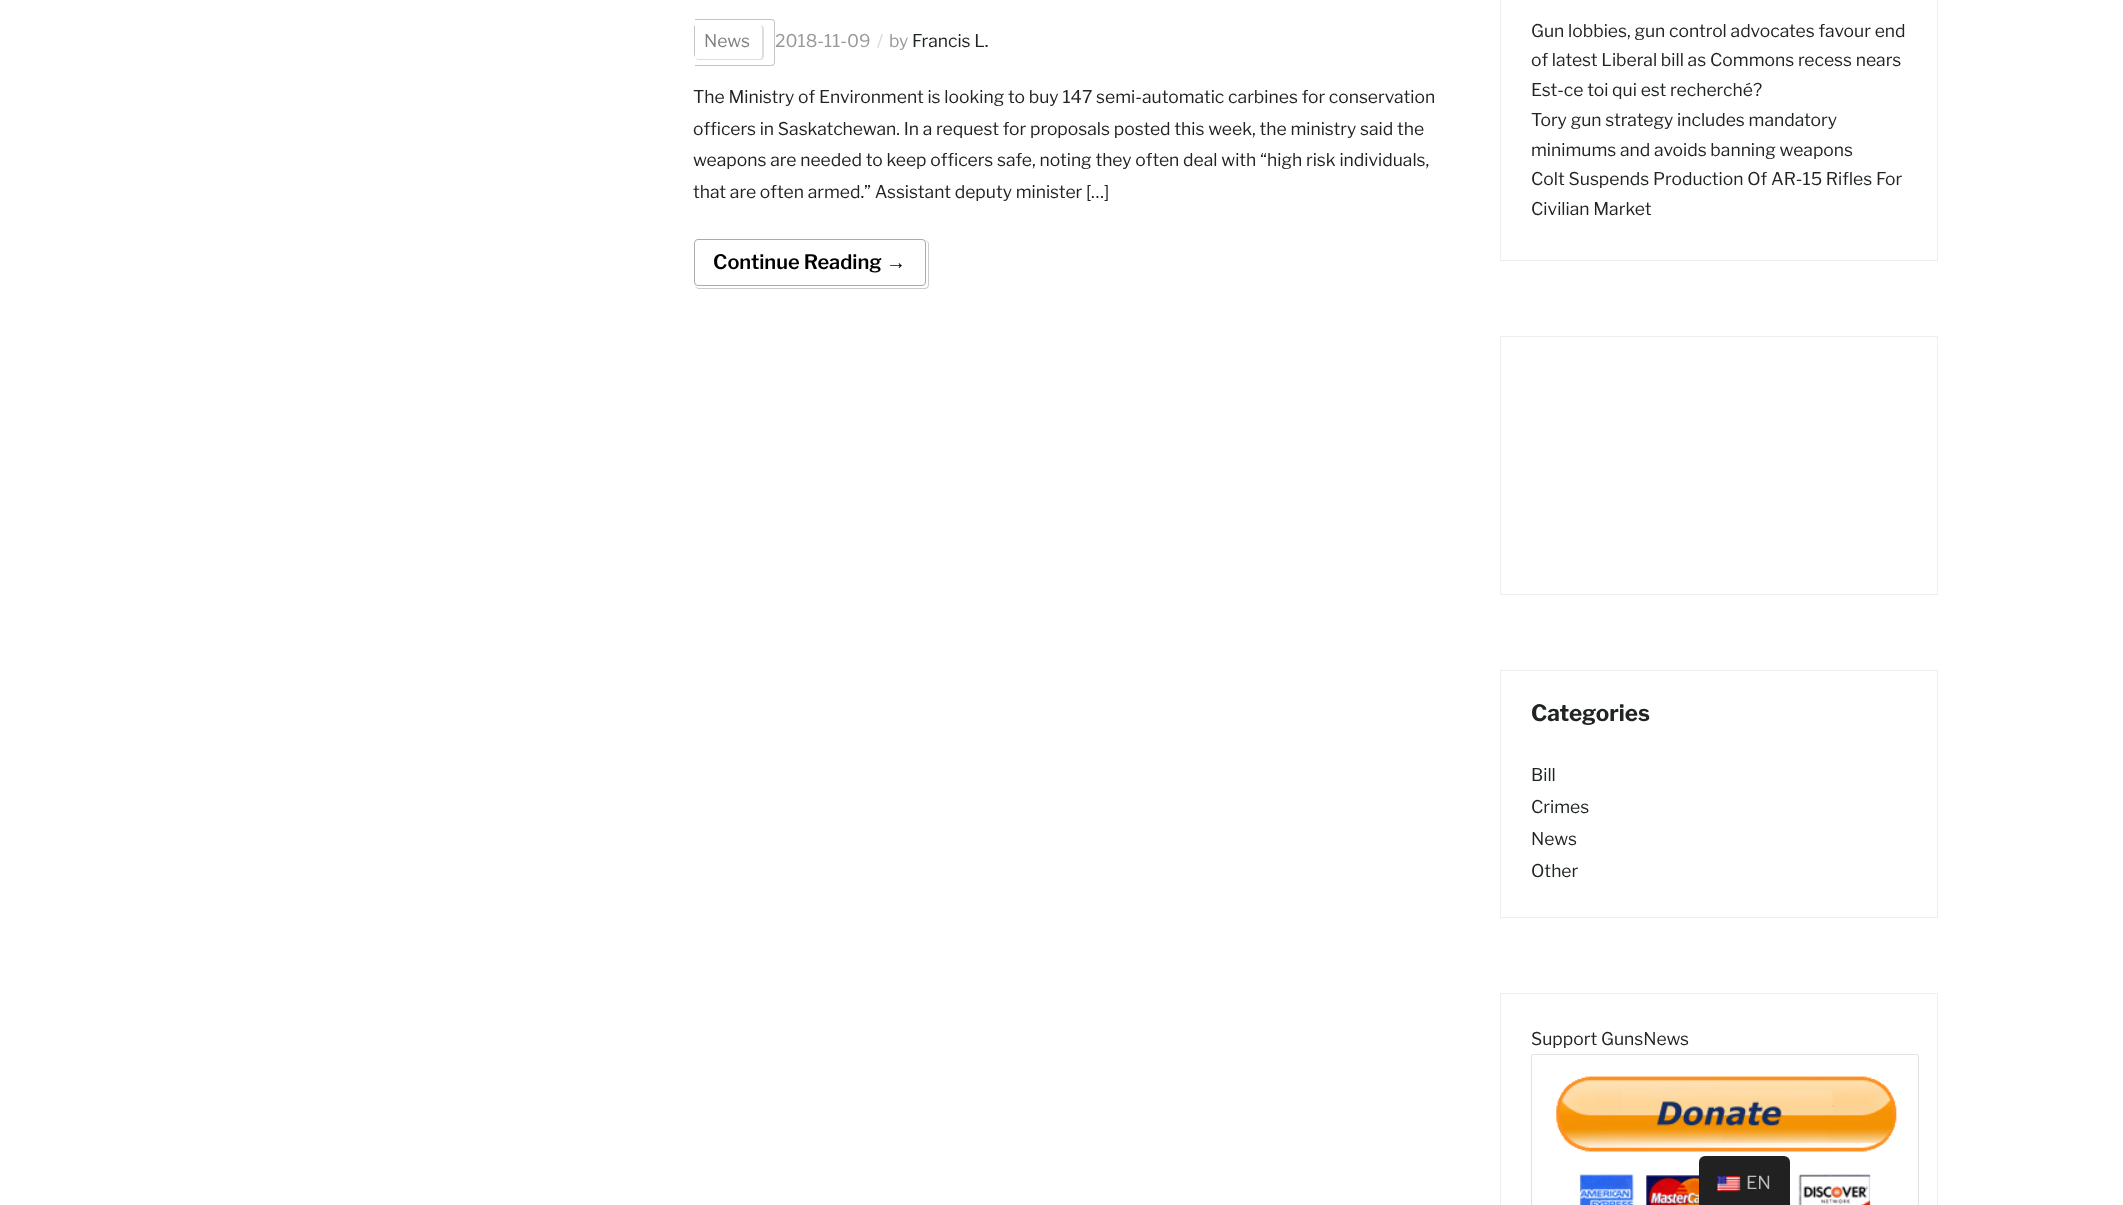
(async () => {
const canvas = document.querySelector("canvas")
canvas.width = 2123
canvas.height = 1205
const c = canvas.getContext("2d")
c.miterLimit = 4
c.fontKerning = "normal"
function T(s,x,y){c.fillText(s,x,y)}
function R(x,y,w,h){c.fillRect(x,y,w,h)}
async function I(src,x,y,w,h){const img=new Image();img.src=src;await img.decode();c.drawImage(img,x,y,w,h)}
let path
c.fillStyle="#fff"
R(0,0,2123,1205)
c.fillStyle="#c4c4c4"
path = new Path2D("M698 24h52v34h-52c-3 0-4-2-4-4v-26c0-3 1-4 4-4zm0 1h52v31h-52c-2 0-3-1-3-2v-26c0-2 1-3 3-3z")
c.fill(path,"evenodd")
c.fillStyle="#fff"
c.beginPath()
c.roundRect(695,19,80,47,[0,4,4,0])
c.fill()
c.fillStyle="#c4c4c4"
path = new Path2D("M695 19h76c2 0 4 1 4 3v40c0 3-2 4-4 4h-76zm0 1h76c2 0 3 1 3 2v40c0 2-1 3-3 3h-76z")
c.fill(path,"evenodd")
c.font="17.5px Libre Franklin"
c.fillStyle="#808080"
T("News",704,47)
c.fillStyle="#ddd"
path = new Path2D("M699 25h61c2 0 4 2 4 4v27c0 2-2 4-4 4h-61c-2 0-4-2-4-4v-27c0-2 2-4 4-4zm0 0h61c1 0 2 2 2 4v27c0 2-1 3-2 3h-61c-2 0-4-1-4-3v-27c0-2 2-4 4-4z")
c.fill(path,"evenodd")
c.fillStyle="#999"
T("2018-11-09",775,47)
c.fillStyle="#d5d5d5"
T("/",877,47)
c.fillStyle="#999"
T("by",889,47)
c.fillStyle="#212425"
T("Francis L.",912,47)
T("The Ministry of Environment is looking to buy 147 semi-automatic carbines for conservation",693,103)
T("officers in Saskatchewan. In a request for proposals posted this week, the ministry said the",693,135)
T("weapons are needed to keep officers safe, noting they often deal with “high risk individuals,",693,166)
T("that are often armed.” Assistant deputy minister […]",693,198)
c.beginPath()
c.roundRect(694.5,239.5,231,46,3.5)
c.strokeStyle="#aaa"
c.stroke()
c.font="600 20px Libre Franklin"
c.fillStyle="#000"
T("Continue Reading",713,269)
c.font="bold 20px Liberation Sans"
T("→",886,269)
c.fillStyle="#ccc"
path = new Path2D("M699 240h226c2 0 4 2 4 4v41c0 2-2 4-4 4h-226c-2 0-4-2-4-4v-41c0-2 2-4 4-4zm0 0h226c1 0 3 2 3 4v41c0 1-2 3-3 3h-226c-2 0-4-2-4-3v-41c0-2 2-4 4-4z")
c.fill(path,"evenodd")
c.strokeStyle="#eee"
c.strokeRect(1500.5,-.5,437,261)
c.font="17.5px Libre Franklin"
c.fillStyle="#212425"
T("Gun lobbies, gun control advocates favour end",1531,37)
T("of latest Liberal bill as Commons recess nears",1531,66)
T("Est-ce toi qui est recherché?",1531,96)
T("Tory gun strategy includes mandatory",1531,126)
T("minimums and avoids banning weapons",1531,156)
T("Colt Suspends Production Of AR-15 Rifles For",1531,185)
T("Civilian Market",1531,215)
c.strokeRect(1500.5,336.5,437,258)
c.strokeRect(1500.5,670.5,437,247)
c.font="bold 22.5px Libre Franklin"
T("Categories",1531,721)
c.font="17.5px Libre Franklin"
T("Bill",1531,781)
T("Crimes",1531,813)
T("News",1531,845)
T("Other",1531,877)
c.strokeRect(1500.5,993.5,437,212)
T("Support GunsNews",1531,1045)
c.beginPath()
c.roundRect(1531.5,1054.5,387,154,2)
c.strokeStyle="#e2e2e2"
c.stroke()
await I("1.png",1556,1076,341,129)
c.fillStyle="#212121"
c.beginPath()
c.roundRect(1699,1156,91,49,[6,6,0,0])
c.fill()
await I("2.png",1717,1176,24,16)
c.font="18px Libre Franklin"
c.fillStyle="#bdbdbd"
T("EN",1746,1189)
})()
